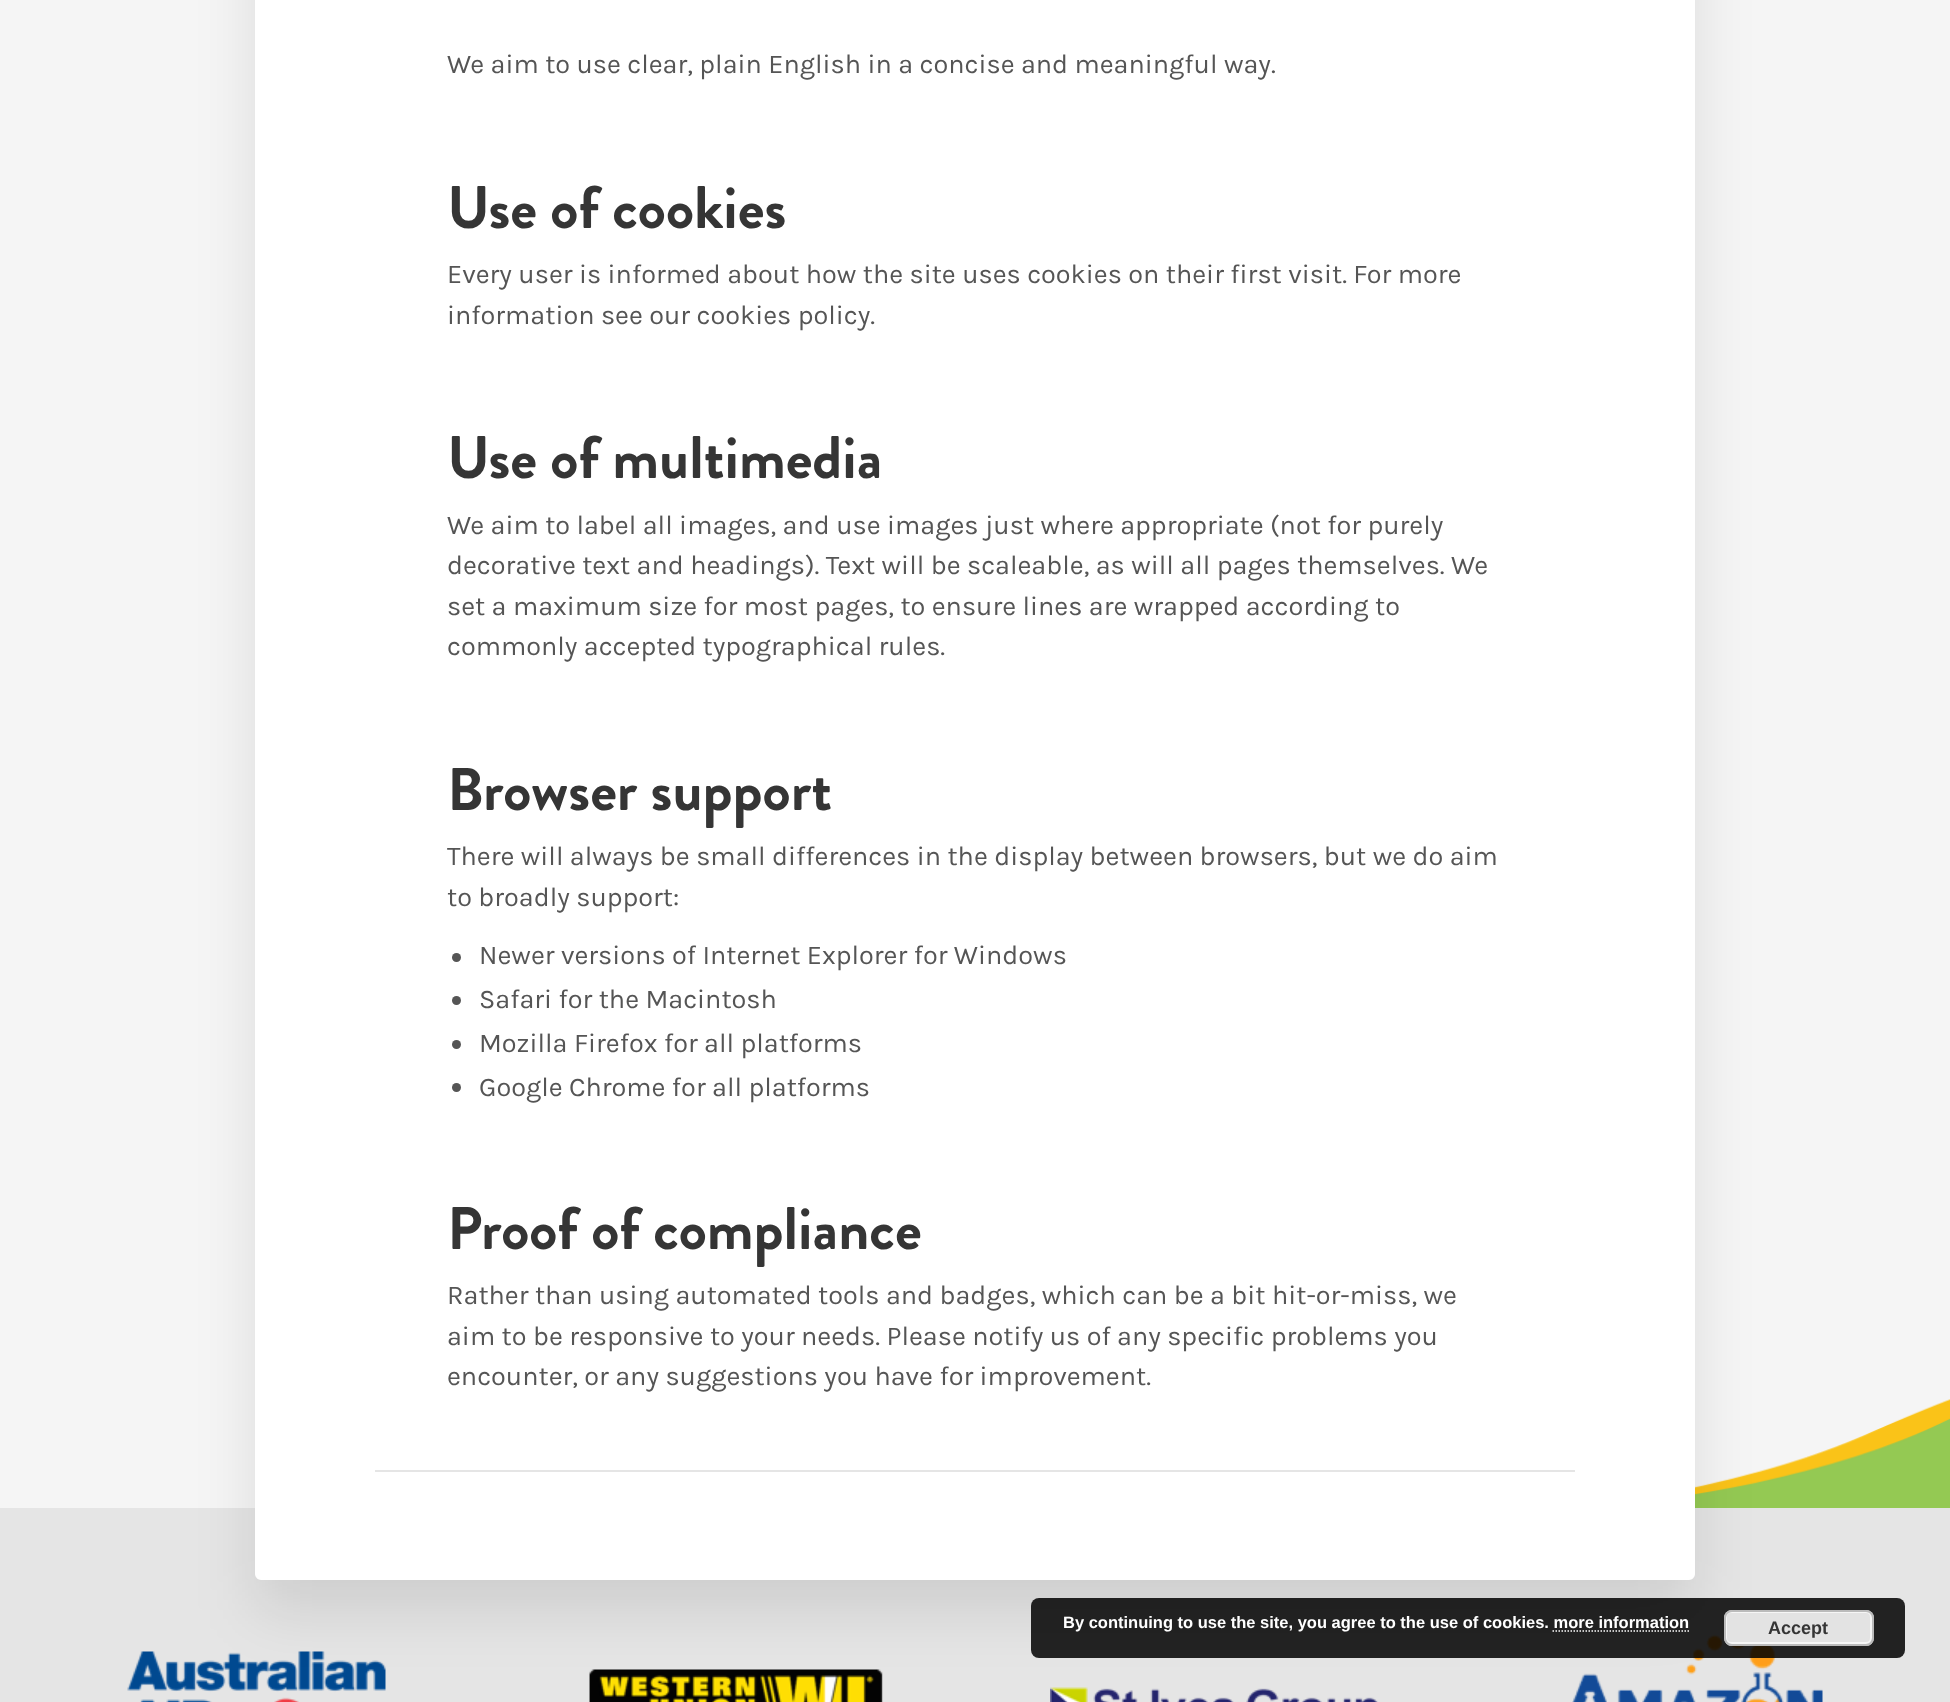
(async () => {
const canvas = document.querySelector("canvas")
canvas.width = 1950
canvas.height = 1702
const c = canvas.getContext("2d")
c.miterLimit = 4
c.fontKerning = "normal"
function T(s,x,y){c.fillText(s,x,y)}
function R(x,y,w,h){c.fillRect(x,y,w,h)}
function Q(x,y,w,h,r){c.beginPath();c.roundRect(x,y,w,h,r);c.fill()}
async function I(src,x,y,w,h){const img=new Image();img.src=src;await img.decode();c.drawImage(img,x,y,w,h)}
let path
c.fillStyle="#f5f5f5"
R(0,0,1950,1702)
await I("1.png",1695,1399,255,109)
c.fillStyle="#e5e5e5"
R(0,1508,1950,194)
await I("2.png",127,1651,259,51)
await I("3.png",589,1669,294,33)
await I("4.png",1050,1687,328,15)
await I("5.png",1572,1634,251,68)
c.fillStyle="#0000001a"
c.filter="blur(30px)"
c.beginPath()
c.roundRect(255,-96,1440,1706,6)
c.fill()
c.filter="none"
c.fillStyle="#fff"
path = new Path2D("M261-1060h1434v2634c0 3-3 6-6 6h-1428c-3 0-6-3-6-6v-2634z")
c.fill(path)
c.font="27px Karla"
c.fillStyle="#555"
T("We aim to use clear, plain English in a concise and meaningful way.",447,73)
c.font="bold 60px Brandon Grotesque"
c.fillStyle="#353535"
T("Use of cookies",447,228)
c.font="27px Karla"
c.fillStyle="#555"
T("Every user is informed about how the site uses cookies on their first visit. For more",447,283)
T("information see our cookies policy.",447,324)
c.font="bold 60px Brandon Grotesque"
c.fillStyle="#353535"
T("Use of multimedia",447,478)
c.font="27px Karla"
c.fillStyle="#555"
T("We aim to label all images, and use images just where appropriate (not for purely",447,534)
T("decorative text and headings). Text will be scaleable, as will all pages themselves. We",447,574)
T("set a maximum size for most pages, to ensure lines are wrapped according to",447,615)
T("commonly accepted typographical rules.",447,655)
c.font="bold 60px Brandon Grotesque"
c.fillStyle="#353535"
T("Browser support",447,810)
c.font="27px Karla"
c.fillStyle="#555"
T("There will always be small differences in the display between browsers, but we do aim",447,865)
T("to broadly support:",447,906)
c.beginPath()
c.arc(456.5,957.5,4.5,0,7)
c.fill()
T("Newer versions of Internet Explorer for Windows",479,964)
c.beginPath()
c.arc(456.5,1000.5,4.5,0,7)
c.fill()
T("Safari for the Macintosh",479,1008)
c.beginPath()
c.arc(456.5,1044.5,4.5,0,7)
c.fill()
T("Mozilla Firefox for all platforms",479,1052)
c.beginPath()
c.arc(456.5,1087.5,4.5,0,7)
c.fill()
T("Google Chrome for all platforms",479,1096)
c.font="bold 60px Brandon Grotesque"
c.fillStyle="#353535"
T("Proof of compliance",447,1249)
c.font="27px Karla"
c.fillStyle="#555"
T("Rather than using automated tools and badges, which can be a bit hit-or-miss, we",447,1304)
T("aim to be responsive to your needs. Please notify us of any specific problems you",447,1345)
T("encounter, or any suggestions you have for improvement.",447,1385)
c.fillStyle="#e5e5e5"
R(375,1470,1200,2)
c.fillStyle="#000000d9"
Q(1031,1598,874,60,8)
c.font="bold 16.5px Liberation Sans"
c.fillStyle="#fff"
T("By continuing to use the site, you agree to the use of cookies. more information",1063,1628)
c.fillStyle="#e3e3e3"
Q(1724,1610,150,36,8)
c.beginPath()
c.roundRect(1726,1612,145,31,5)
c.strokeStyle="#f6f6f6"
c.lineWidth=2
c.stroke()
c.beginPath()
c.roundRect(1725,1611,148,34,7)
c.strokeStyle="#bbb"
c.stroke()
c.font="bold 18px Liberation Sans"
c.fillStyle="#353535"
T("Accept",1768,1634)
path = new Path2D("M1552.5 1631h136.5")
c.strokeStyle="#fff"
c.lineWidth=1.5
c.setLineDash([1.5,1.5])
c.stroke(path)
})()
